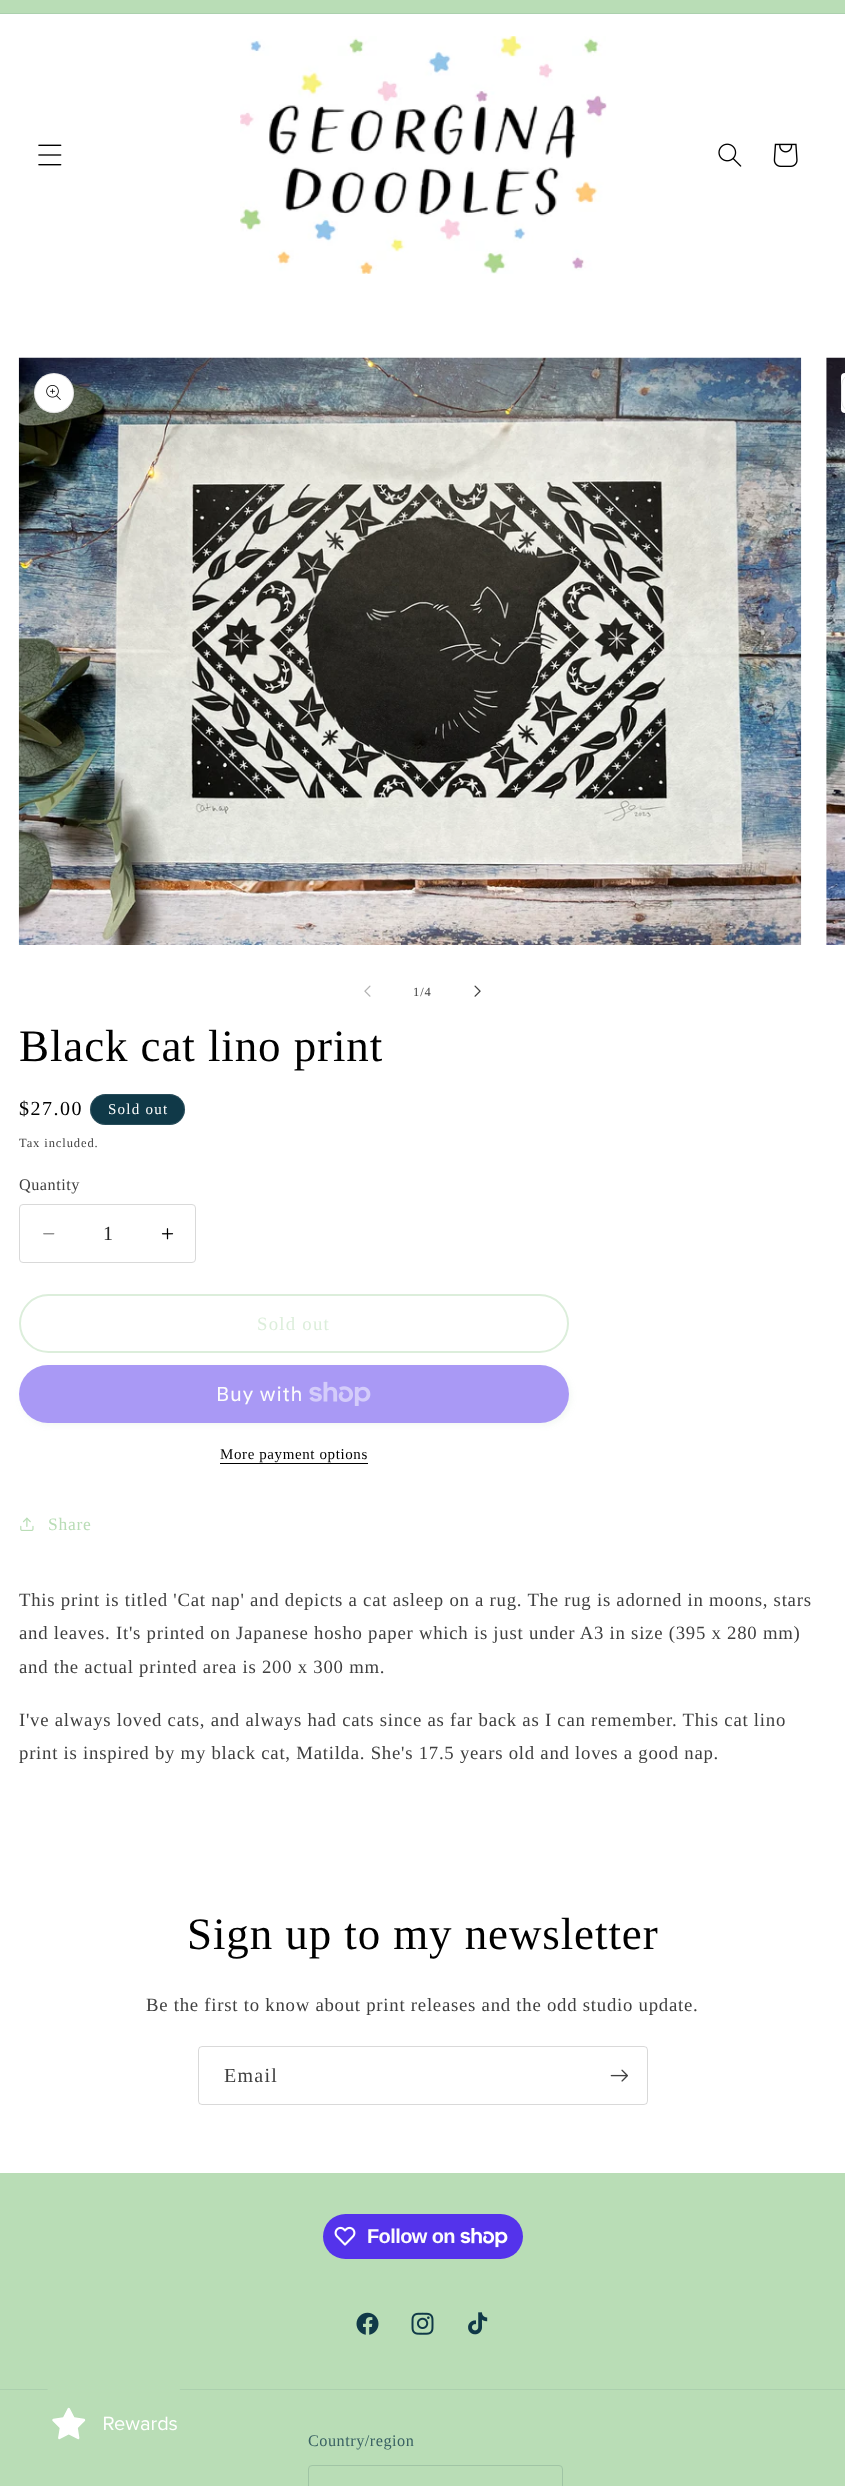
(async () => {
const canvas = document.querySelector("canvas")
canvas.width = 845
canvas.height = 2486
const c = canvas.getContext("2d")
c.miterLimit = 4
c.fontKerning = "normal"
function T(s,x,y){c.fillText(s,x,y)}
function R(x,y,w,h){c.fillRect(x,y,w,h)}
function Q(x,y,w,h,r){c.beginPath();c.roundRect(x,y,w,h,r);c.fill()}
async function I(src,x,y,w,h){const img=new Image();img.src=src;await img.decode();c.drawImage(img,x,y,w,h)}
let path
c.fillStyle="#fff"
R(0,0,845,2486)
c.fillStyle="#b9ddb6"
R(0,0,845,13)
c.fillStyle="#abd0ad"
R(0,13,845,1)
await I("1.png",38,144,24,22)
await I("2.png",240,36,367,238)
await I("3.png",718,143,24,24)
await I("4.png",773,143,25,24)
await I("5.png",18,357,784,588)
c.fillStyle="#fff"
c.beginPath()
c.arc(54,393,20,0,7)
c.fill()
c.beginPath()
c.arc(54,393,19.5,0,7)
c.strokeStyle="#0000001a"
c.stroke()
await I("6.png",46,385,15,15)
await I("7.png",826,357,19,588)
c.beginPath()
c.roundRect(841,373,4,40,[20,0,0,20])
c.fill()
c.beginPath()
c.roundRect(841.5,373.5,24,39,19.5)
c.stroke()
await I("8.png",364,985,7,12)
c.letterSpacing="0.9px"
c.font="12.5px Liberation Serif"
c.fillStyle="#404040"
T("1/4",413,996)
await I("9.png",474,985,7,12)
c.font="45px Liberation Serif"
c.fillStyle="#000"
T("Black cat lino print",19,1061)
c.letterSpacing="1.5px"
c.font="20px Liberation Serif"
T("$27.00",19,1115)
c.fillStyle="#103948"
Q(90,1094,95,31,15.5)
c.beginPath()
c.roundRect(90.5,1094.5,94,30,15)
c.strokeStyle="#fcfcfc1a"
c.stroke()
c.letterSpacing="1.25px"
c.font="15px Liberation Serif"
c.fillStyle="#fcfcfc"
T("Sold out",108,1114)
c.letterSpacing="0.9px"
c.font="12.5px Liberation Serif"
c.fillStyle="#404040"
T("Tax included.",19,1147)
c.letterSpacing="0.5px"
c.font="16.25px Liberation Serif"
T("Quantity",19,1190)
await I("10.png",43,1233,12,2)
await I("11.png",161,1228,13,12)
c.beginPath()
c.roundRect(19.5,1204.5,176,58,3.5)
c.strokeStyle="#d9d9d9"
c.stroke()
c.letterSpacing="0px"
c.font="20px Liberation Serif"
c.fillStyle="#262626"
T("1",103,1240)
c.beginPath()
c.roundRect(20,1295,548,57,28.5)
c.strokeStyle="#dceedb"
c.lineWidth=2
c.stroke()
c.letterSpacing="1.25px"
c.font="18.75px Liberation Serif"
c.fillStyle="#dceedb"
T("Sold out",257,1330)
c.save()
path = new Path2D("M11 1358h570v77h-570zm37 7h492c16 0 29 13 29 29c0 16-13 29-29 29h-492c-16 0-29-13-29-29c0-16 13-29 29-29z")
c.clip(path,"evenodd")
c.fillStyle="#82ae7e1a"
c.filter="blur(3px)"
c.beginPath()
c.roundRect(21,1368,550,57,28.5)
c.fill()
c.filter="none"
c.restore()
c.fillStyle="#5433eb80"
Q(19,1365,550,58,29)
c.letterSpacing="0.75px"
c.font="20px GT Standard"
c.fillStyle="#fcfcfc"
T("Buy with",216,1401)
await I("12.png",309,1381,62,25)
c.letterSpacing="0.6px"
c.font="15px Liberation Serif"
c.fillStyle="#000"
T("More payment options",220,1459)
R(220,1463,148,1)
await I("13.png",20,1517,14,14)
c.letterSpacing="0.75px"
c.font="17.5px Liberation Serif"
c.fillStyle="#b9ddb6"
T("Share",48,1530)
c.font="18.75px Liberation Serif"
c.fillStyle="#404040"
T("This print is titled 'Cat nap' and depicts a cat asleep on a rug. The rug is adorned in moons, stars",19,1606)
T("and leaves. It's printed on Japanese hosho paper which is just under A3 in size (395 x 280 mm)",19,1639)
T("and the actual printed area is 200 x 300 mm.",19,1673)
T("I've always loved cats, and always had cats since as far back as I can remember. This cat lino",19,1726)
T("print is inspired by my black cat, Matilda. She's 17.5 years old and loves a good nap.",19,1759)
c.letterSpacing="0.9px"
c.font="45px Liberation Serif"
c.fillStyle="#000"
T("Sign up to my newsletter",187,1949)
c.letterSpacing="0.75px"
c.font="18.75px Liberation Serif"
c.fillStyle="#404040"
T("Be the first to know about print releases and the odd studio update.",146,2011)
c.beginPath()
c.roundRect(198.5,2046.5,449,58,3.5)
c.strokeStyle="#00000026"
c.lineWidth=1
c.stroke()
c.letterSpacing="1.25px"
c.font="20px Liberation Serif"
T("Email",224,2082)
await I("14.png",610,2069,18,13)
c.fillStyle="#b9ddb6"
R(0,2173,845,313)
c.fillStyle="#abd0ad"
R(0,2389,845,1)
await I("15.png",47,2389,133,51)
c.fillStyle="#5433eb"
Q(323,2214,200,45,22.5)
await I("16.png",334,2226,22,20)
c.letterSpacing="-0.6px"
c.font="bold 20px Liberation Sans"
c.fillStyle="#fcfcfc"
T("Follow on",367,2243)
await I("17.png",460,2228,48,20)
await I("18.png",356,2312,23,23)
await I("19.png",411,2312,23,23)
await I("20.png",468,2312,20,23)
c.letterSpacing="0.5px"
c.font="16.25px Liberation Serif"
c.fillStyle="#3a6264"
T("Country/region",308,2446)
c.beginPath()
c.roundRect(308.5,2465.5,254,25,3.5)
c.strokeStyle="#a0c4a5"
c.stroke()
})()
